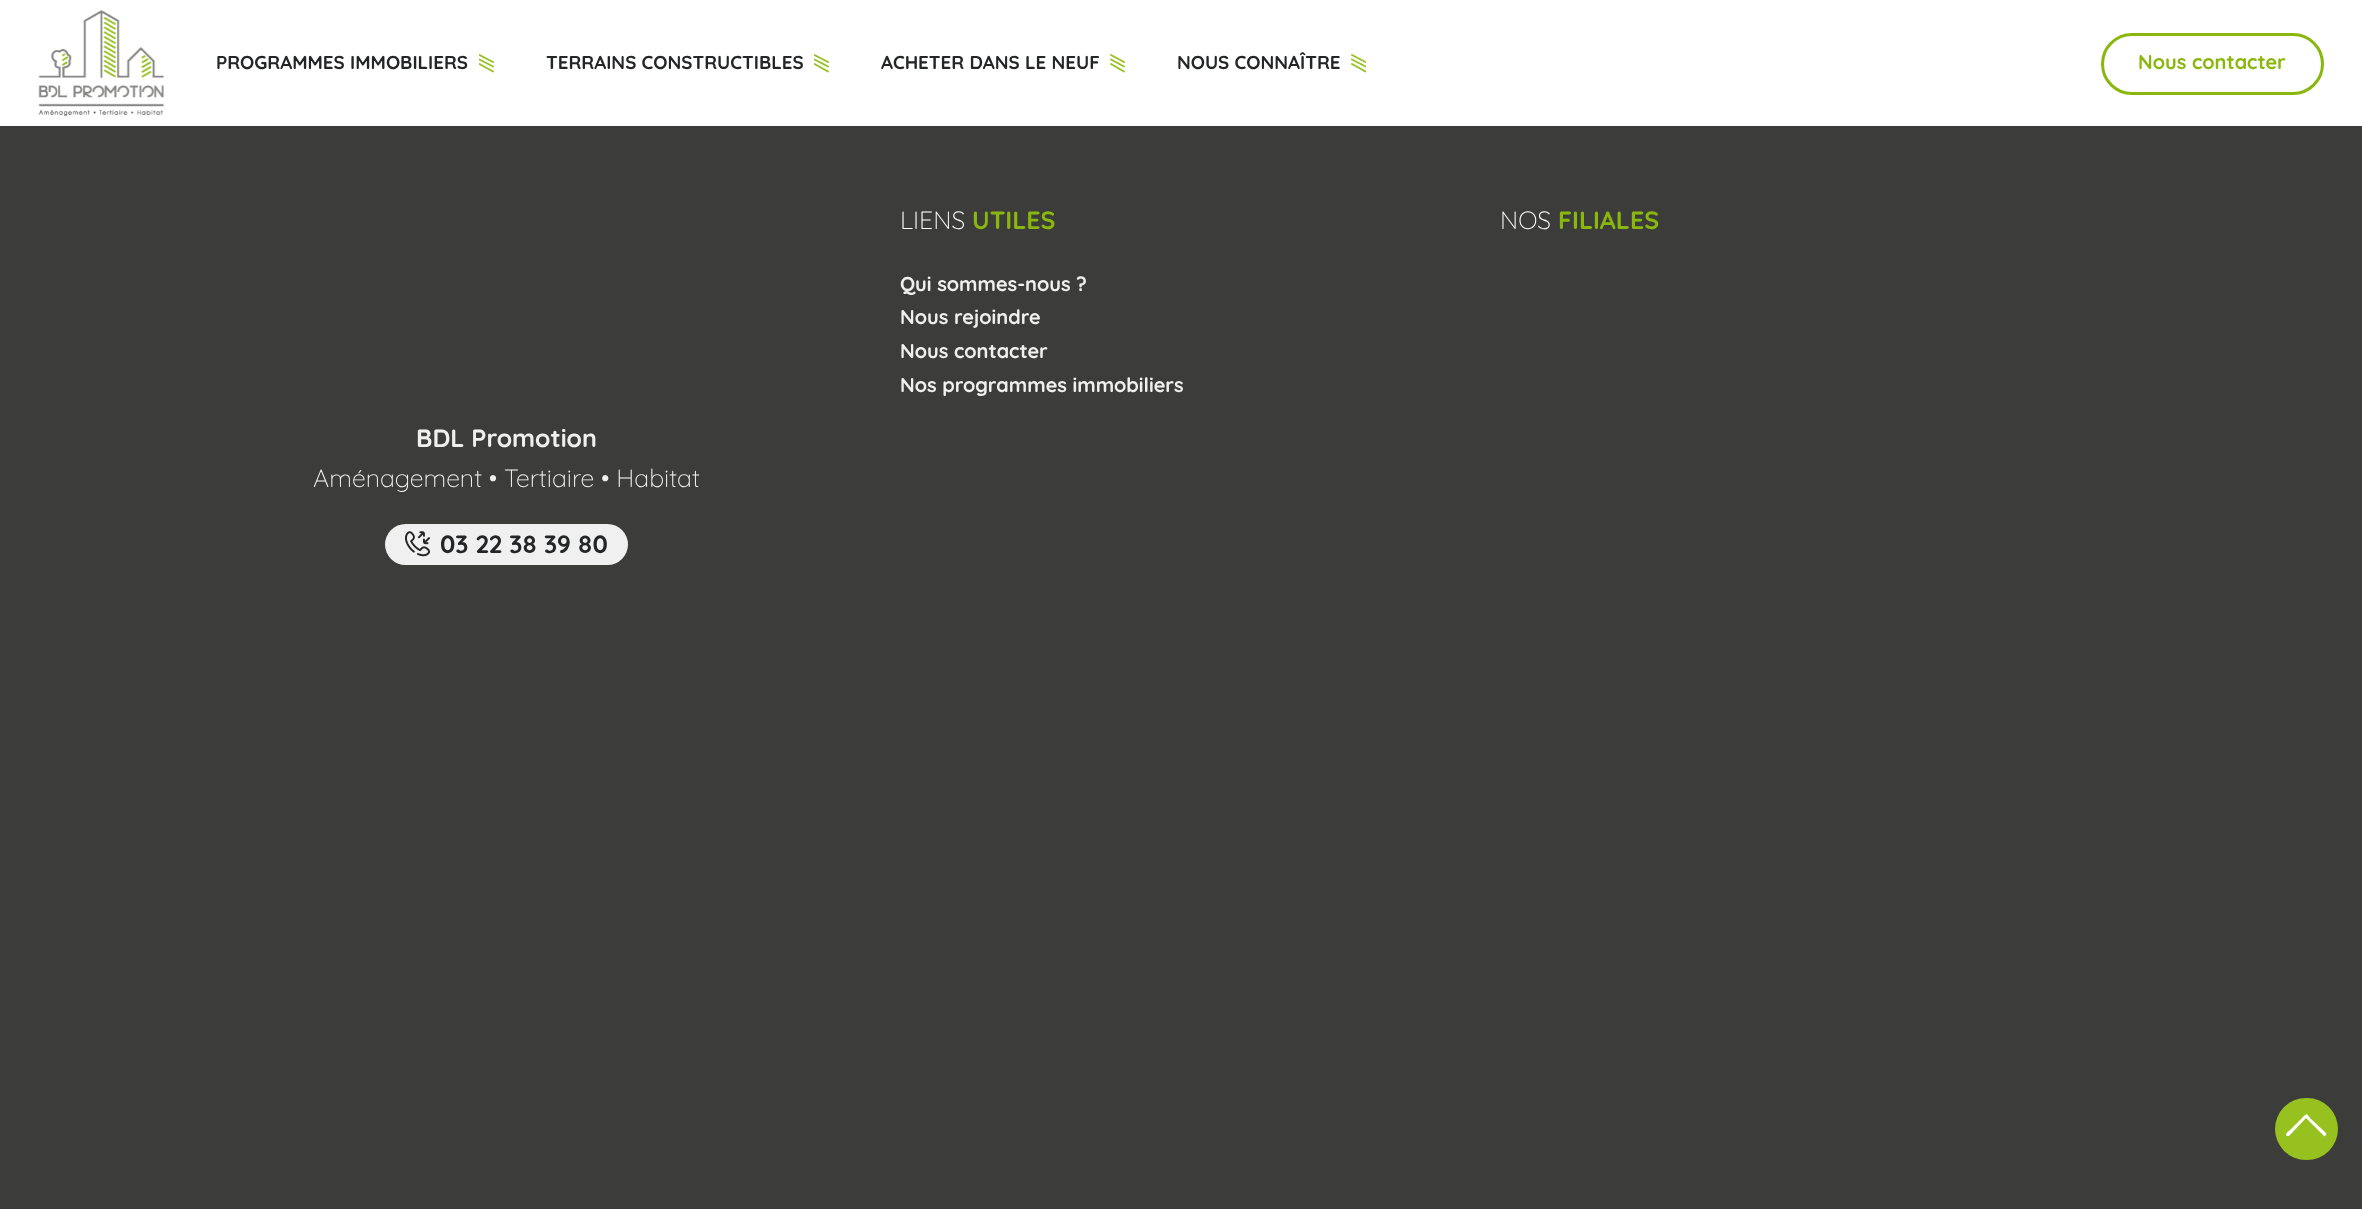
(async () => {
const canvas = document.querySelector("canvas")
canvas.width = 2362
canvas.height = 1209
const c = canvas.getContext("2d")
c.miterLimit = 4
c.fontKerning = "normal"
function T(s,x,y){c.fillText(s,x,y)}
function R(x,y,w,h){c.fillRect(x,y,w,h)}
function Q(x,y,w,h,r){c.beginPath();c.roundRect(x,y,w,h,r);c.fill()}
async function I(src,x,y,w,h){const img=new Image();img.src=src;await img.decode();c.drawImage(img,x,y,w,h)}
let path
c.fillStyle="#3c3c3b"
R(0,0,2362,1209)
c.fillStyle="#fff"
R(0,0,2362,126)
await I("1.png",38,10,126,107)
c.font="300 18.75px Quicksand"
c.fillStyle="#242526"
T("PROGRAMMES IMMOBILIERS",216,69)
c.save()
c.beginPath()
c.rect(479,54,15,19)
c.clip()
path = new Path2D("M479.5 55l13.5 7m-13.5-2.5l13.5 7m-13.5-2.5l13.5 7.5")
c.strokeStyle="#96c11f"
c.lineWidth=1.9
c.lineCap="round"
c.stroke(path)
c.restore()
T("TERRAINS CONSTRUCTIBLES",546,69)
c.save()
c.beginPath()
c.rect(814,54,15,19)
c.clip()
path = new Path2D("M814.5 55l13.5 7m-13.5-2.5l13.5 7m-13.5-2.5l13.5 7.5")
c.strokeStyle="#96c11f"
c.lineWidth=1.9
c.lineCap="round"
c.stroke(path)
c.restore()
T("ACHETER DANS LE NEUF",881,69)
path = new Path2D("M1111 55l13 7m-13-2.5l13 7m-13-2.5l13 7.5")
c.strokeStyle="#96c11f"
c.lineWidth=1.9
c.lineCap="round"
c.stroke(path)
T("NOUS CONNAÎTRE",1177,69)
c.save()
c.beginPath()
c.rect(1351,54,15,19)
c.clip()
path = new Path2D("M1352 55l13.5 7m-13.5-2.5l13.5 7m-13.5-2.5l13.5 7.5")
c.stroke(path)
c.restore()
c.beginPath()
c.roundRect(2102.5,34.5,220,59,29.5)
c.strokeStyle="#8ab70e"
c.lineWidth=3
c.stroke()
c.font="300 20px Quicksand"
c.fillStyle="#8ab70e"
T("Nous contacter",2138,69)
c.font="300 25px 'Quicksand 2'"
c.fillStyle="#fff"
T("LIENS",900,229)
c.font="300 25px Quicksand"
c.fillStyle="#8ab70e"
T("UTILES",972,229)
c.font="300 20px Quicksand"
c.fillStyle="#f0f0f0"
T("Qui sommes-nous ?",900,291)
T("Nous rejoindre",900,324)
T("Nous contacter",900,358)
T("Nos programmes immobiliers",900,392)
c.font="300 25px 'Quicksand 2'"
c.fillStyle="#fff"
T("NOS",1500,229)
c.font="300 25px Quicksand"
c.fillStyle="#8ab70e"
T("FILIALES",1558,229)
c.fillStyle="#f0f0f0"
T("BDL Promotion",416,447)
c.font="300 25px 'Quicksand 2'"
T("Aménagement • Tertiaire • Habitat",313,487)
Q(385,524,243,41,20.5)
await I("2.png",405,531,25,26)
c.font="300 25px Quicksand"
c.fillStyle="#242526"
T("03 22 38 39 80",440,553)
c.fillStyle="#96c11f"
Q(2275,1098,63,62,31)
c.fillStyle="#fff"
path = new Path2D("M2326 1133c1 1-1 4-2 3l-18-18l-17 18h-2c-3-2 2-5 3-6l12-12c5-5 4-5 8 0z")
c.fill(path)
})()
